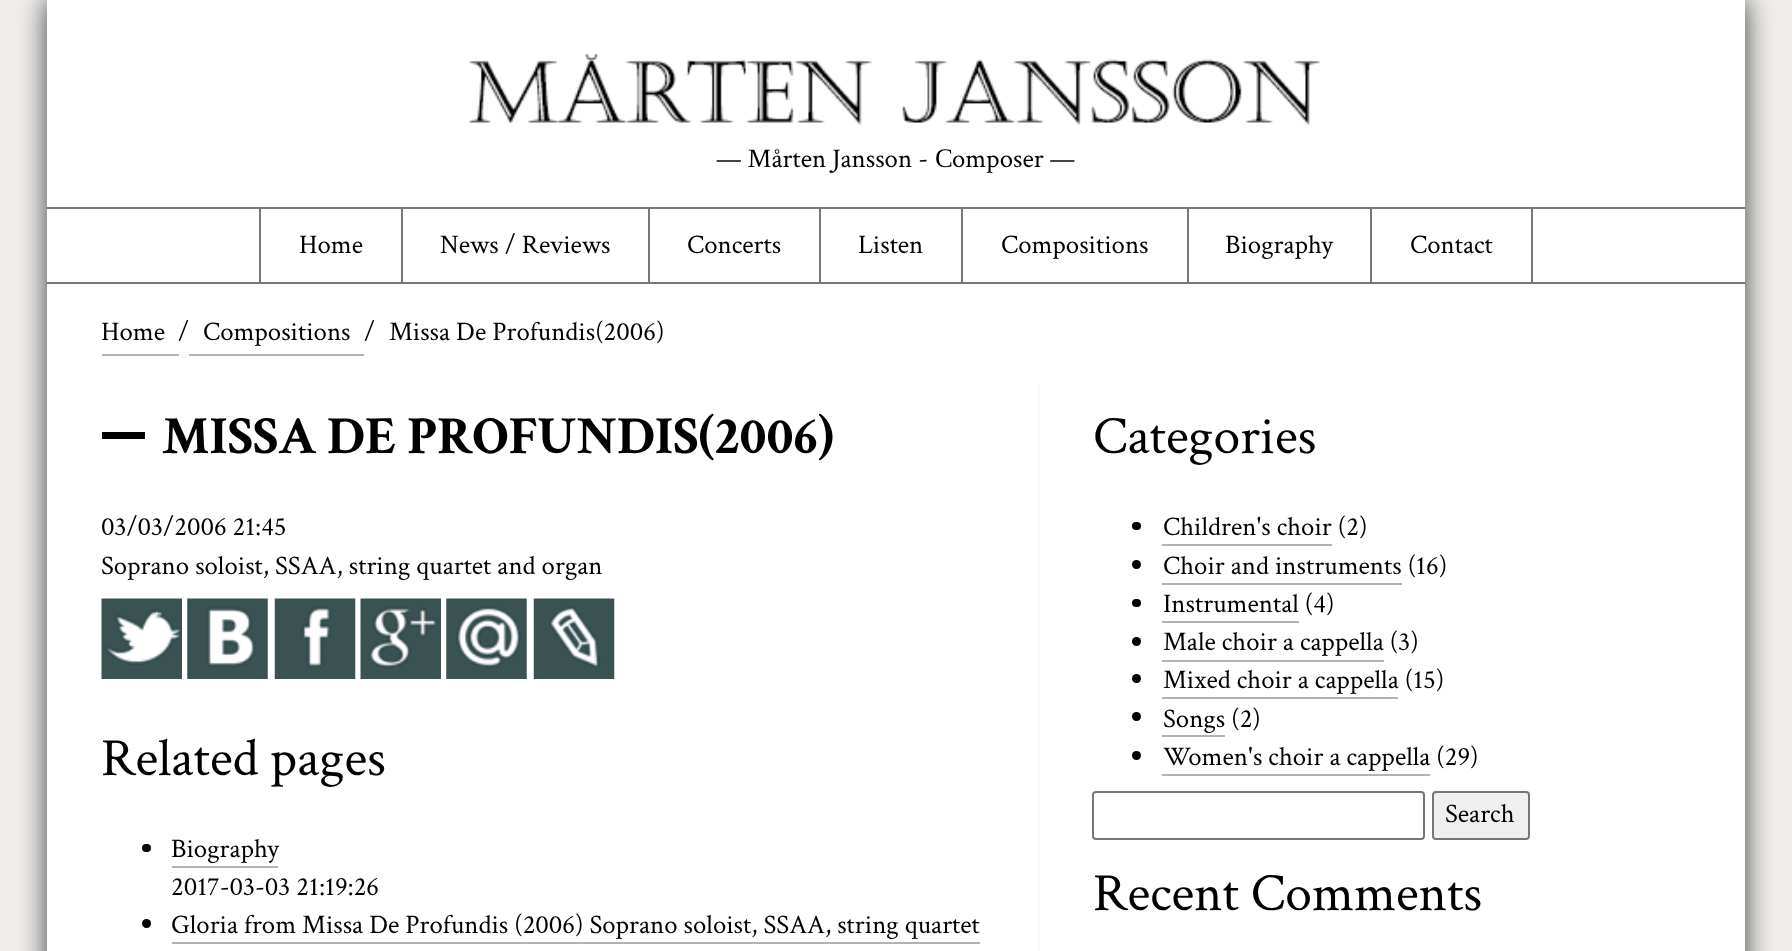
(async () => {
const canvas = document.querySelector("canvas")
canvas.width = 1792
canvas.height = 951
const c = canvas.getContext("2d")
c.miterLimit = 4
c.fontKerning = "normal"
function T(s,x,y){c.fillText(s,x,y)}
function R(x,y,w,h){c.fillRect(x,y,w,h)}
function Q(x,y,w,h,r){c.beginPath();c.roundRect(x,y,w,h,r);c.fill()}
async function I(src,x,y,w,h){const img=new Image();img.src=src;await img.decode();c.drawImage(img,x,y,w,h)}
c.fillStyle="#efeeec"
R(0,0,1792,951)
c.fillStyle="#000000bf"
c.filter="blur(14px)"
c.beginPath()
c.rect(47,0,1698,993)
c.fill()
c.filter="none"
c.fillStyle="#fff"
R(47,0,1698,951)
await I("1.png",468,54,852,71)
c.font="26.8px Crimson Text"
c.fillStyle="#000"
T("— Mårten Jansson -",716,167)
c.font="26.8px Liberation Serif"
T("С",935,167)
c.font="26.8px Crimson Text"
T("omposer —",952,167)
c.fillStyle="#777"
R(47,207,1698,2)
R(47,282,1698,2)
R(401,208,2,76)
R(259,208,2,76)
c.fillStyle="#000"
T("Home",299,253)
c.fillStyle="#777"
R(648,208,2,76)
c.fillStyle="#000"
T("News / Reviews",440,253)
c.fillStyle="#777"
R(819,208,2,76)
c.fillStyle="#000"
T("Concerts",687,253)
c.fillStyle="#777"
R(961,208,2,76)
c.fillStyle="#000"
T("Listen",858,253)
c.fillStyle="#777"
R(1187,208,2,76)
c.fillStyle="#000"
T("Compositions",1001,253)
c.fillStyle="#777"
R(1370,208,2,76)
c.fillStyle="#000"
T("Biography",1225,253)
c.fillStyle="#777"
R(1531,208,2,76)
c.fillStyle="#000"
T("Contact",1410,253)
c.fillStyle="#b3b3b3"
R(102,354,77,2)
c.fillStyle="#000"
T("Home",101,340)
T("/",178,340)
c.fillStyle="#b3b3b3"
R(189,354,175,2)
c.fillStyle="#000"
T("Compositions",203,340)
T("/",364,340)
T("Missa De Profundis(2006)",389,340)
R(102,432,43,7)
c.font="bold 53.7px Crimson Text"
T("MISSA DE PROFUNDIS(2006)",162,453)
c.font="26.8px Crimson Text"
T("03/03/2006 21:45",101,535)
T("Soprano soloist, SSAA, string quartet and organ",101,574)
await I("2.png",101,598,81,81)
await I("3.png",187,598,81,81)
await I("4.png",274,598,82,81)
await I("5.png",360,598,81,81)
await I("6.png",446,598,81,81)
await I("7.png",533,598,82,81)
c.font="53.7px Crimson Text"
T("Related pages",101,775)
Q(142,844,9,8,4)
c.font="26.8px Crimson Text"
T("Biography",171,857)
c.fillStyle="#b3b3b3"
R(172,866,106,2)
c.fillStyle="#000"
T("2017-03-03 21:19:26",171,895)
c.beginPath()
c.arc(146.5,923.5,4.5,0,7)
c.fill()
T("Gloria from Missa De Profundis (2006) Soprano soloist, SSAA, string quartet",171,933)
c.fillStyle="#b3b3b3"
R(172,942,808,2)
c.fillStyle="#f9f9f9"
R(1038,383,2,568)
c.font="53.7px Crimson Text"
c.fillStyle="#000"
T("Categories",1093,453)
Q(1132,522,9,8,4)
c.font="26.8px Crimson Text"
T("Children's choir (2)",1163,535)
c.fillStyle="#b3b3b3"
R(1162,544,170,2)
c.fillStyle="#000"
c.beginPath()
c.arc(1136.5,564.5,4.5,0,7)
c.fill()
T("Choir and instruments (16)",1163,574)
c.fillStyle="#b3b3b3"
R(1162,583,240,2)
c.fillStyle="#000"
Q(1132,599,9,8,4)
T("Instrumental (4)",1163,612)
c.fillStyle="#b3b3b3"
R(1162,621,137,2)
c.fillStyle="#000"
c.beginPath()
c.arc(1136.5,641.5,4.5,0,7)
c.fill()
T("Male choir a cappella (3)",1163,650)
c.fillStyle="#b3b3b3"
R(1162,660,222,2)
c.fillStyle="#000"
c.beginPath()
c.arc(1136.5,678.5,4.5,0,7)
c.fill()
T("Mixed choir a cappella (15)",1163,688)
c.fillStyle="#b3b3b3"
R(1162,697,236,2)
c.fillStyle="#000"
c.beginPath()
c.arc(1136.5,716.5,4.5,0,7)
c.fill()
T("Songs (2)",1163,727)
c.fillStyle="#b3b3b3"
R(1162,735,63,2)
c.fillStyle="#000"
c.beginPath()
c.arc(1136.5,755.5,4.5,0,7)
c.fill()
T("Women's choir a cappella (29)",1163,765)
c.fillStyle="#b3b3b3"
R(1162,774,268,2)
c.beginPath()
c.roundRect(1093,792,331,47,3)
c.strokeStyle="#767676"
c.lineWidth=2
c.stroke()
c.fillStyle="#efefef"
c.beginPath()
c.roundRect(1433,792,96,47,3)
c.fill()
c.stroke()
c.fillStyle="#000"
T("Search",1445,822)
c.font="53.7px Crimson Text"
T("Recent Comments",1093,910)
})()
